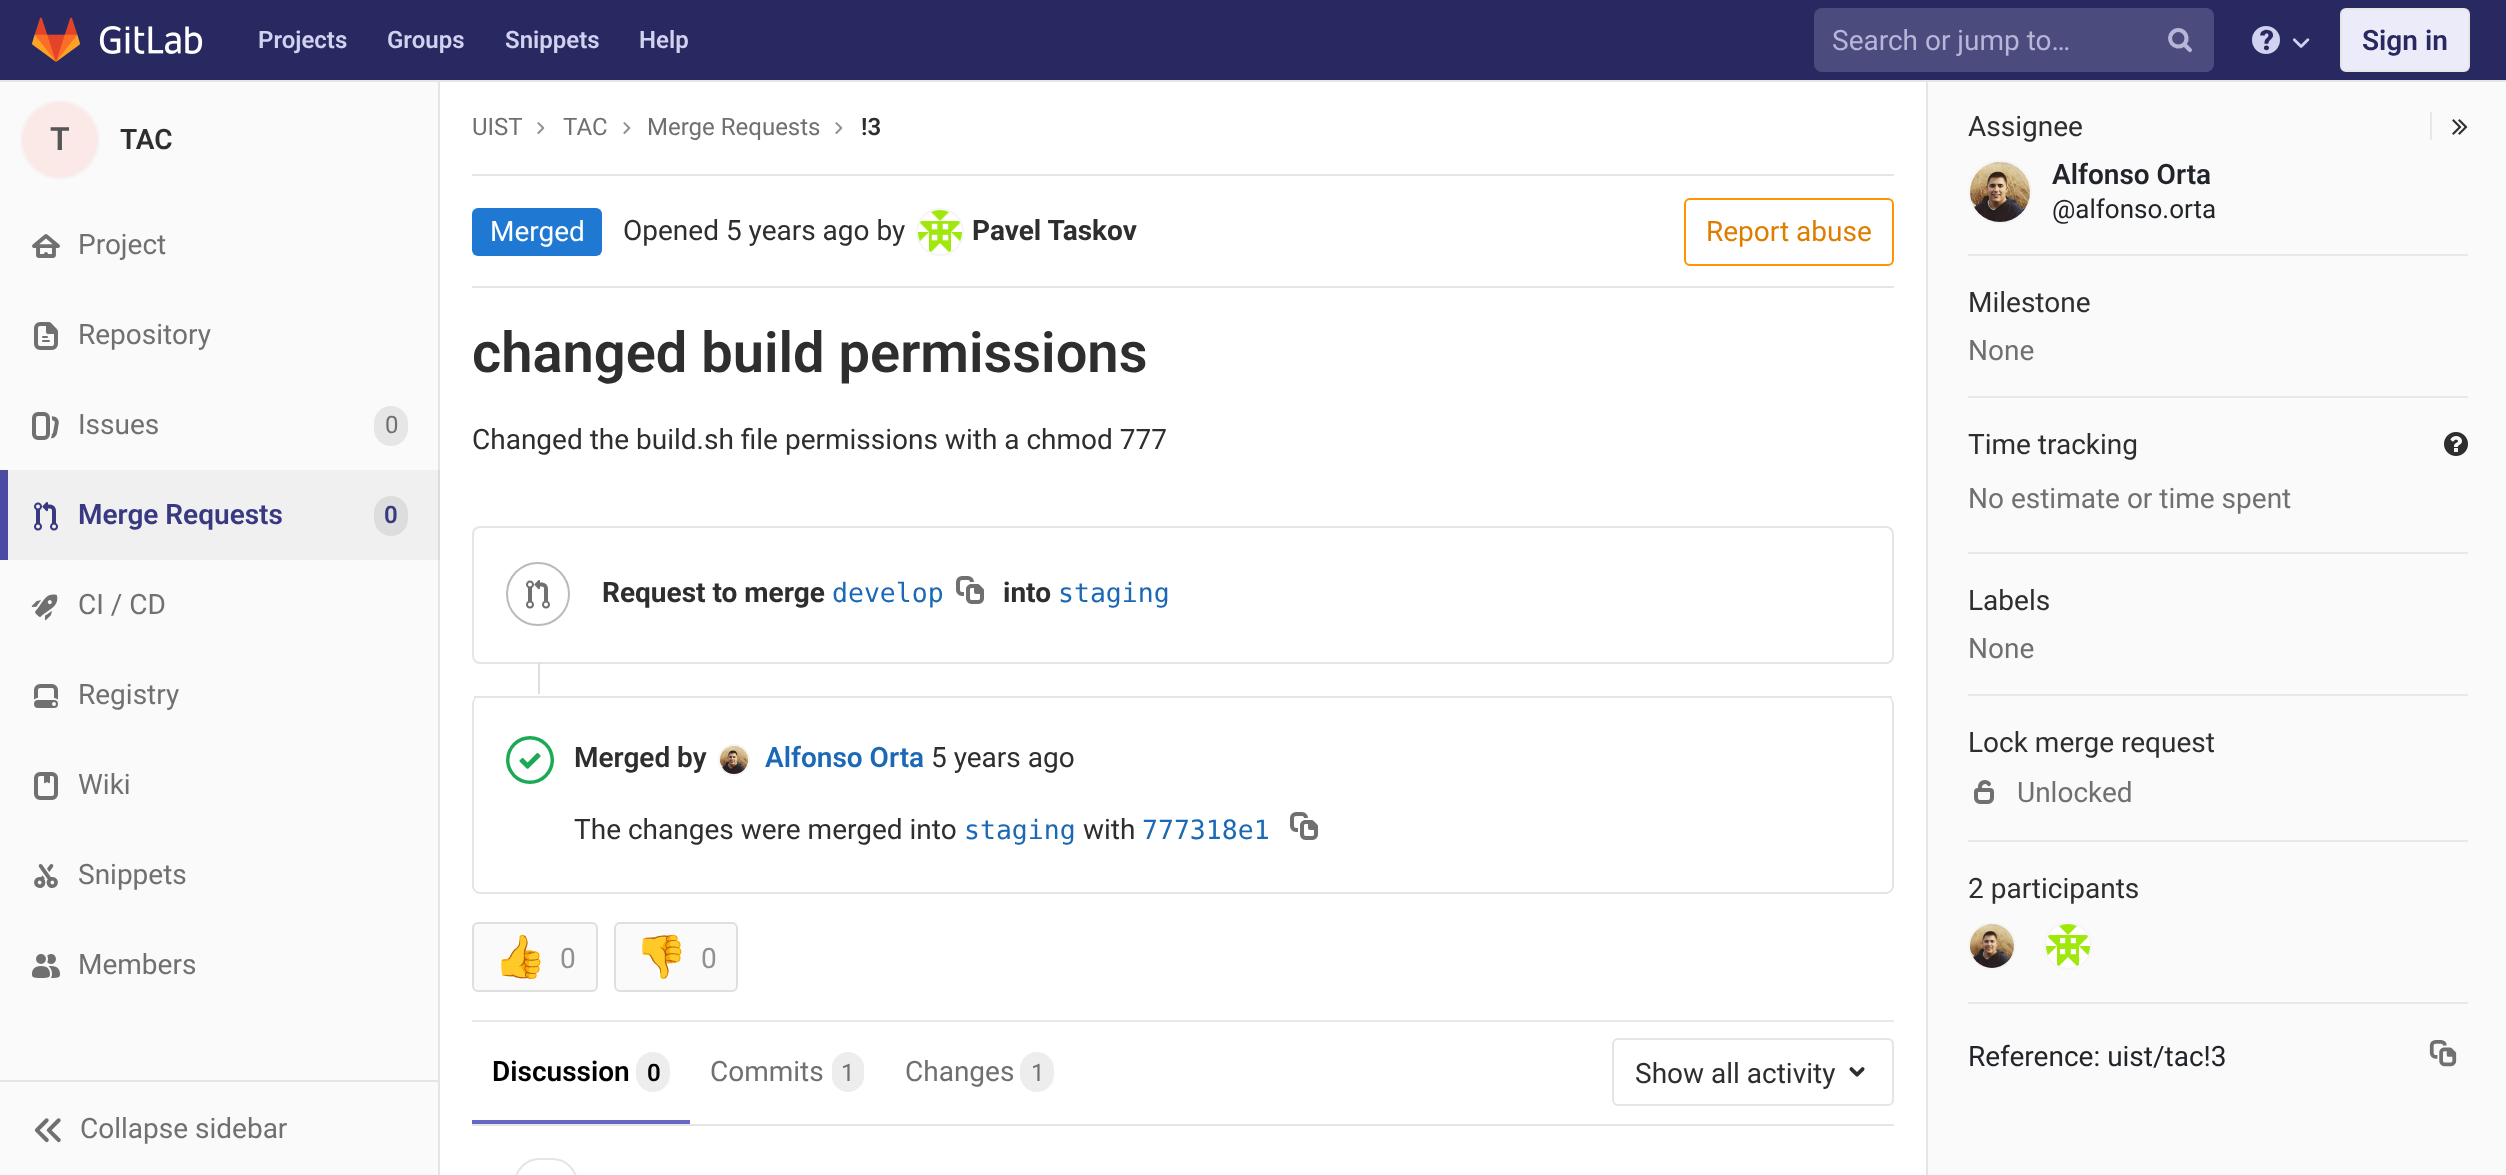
(async () => {
const canvas = document.querySelector("canvas")
canvas.width = 2506
canvas.height = 1175
const c = canvas.getContext("2d")
c.miterLimit = 4
c.fontKerning = "normal"
function T(s,x,y){c.fillText(s,x,y)}
function R(x,y,w,h){c.fillRect(x,y,w,h)}
function Q(x,y,w,h,r){c.beginPath();c.roundRect(x,y,w,h,r);c.fill()}
async function I(src,x,y,w,h){const img=new Image();img.src=src;await img.decode();c.drawImage(img,x,y,w,h)}
let path
c.fillStyle="#fff"
R(0,0,2506,1175)
c.fillStyle="#292961"
R(0,0,2506,80)
c.fillStyle="#e5e5e5"
R(438,80,2,1095)
R(1926,80,2,1095)
R(0,80,2506,2)
await I("1.png",32,17,48,45)
await I("2.png",99,26,104,28)
c.font="600 24px Roboto"
c.fillStyle="#d1d1f0"
T("Projects",258,48)
T("Groups",387,48)
T("Snippets",505,48)
T("Help",639,48)
c.fillStyle="#4b4b7e"
Q(1814,8,400,64,8)
c.font="28px Roboto"
c.fillStyle="#b6b6d9"
T("Search or jump to…",1832,50)
await I("3.png",2168,28,24,25)
await I("4.png",2252,26,28,28)
await I("5.png",2292,38,18,10)
c.fillStyle="#ebebfa"
c.beginPath()
c.roundRect(2341,9,128,62,5)
c.fill()
c.strokeStyle="#e5e5e5"
c.lineWidth=2
c.stroke()
c.font="600 28px Roboto"
c.fillStyle="#292961"
T("Sign in",2362,50)
c.fillStyle="#fafafa"
R(0,82,438,1093)
c.fillStyle="#f0f0f0"
R(8,470,430,90)
c.fillStyle="#dcdcdc"
R(438,470,2,90)
c.beginPath()
c.arc(60,140,39,0,7)
c.strokeStyle="#f5f5f5"
c.stroke()
c.fillStyle="#fbe9e7"
c.beginPath()
c.arc(60,140,38,0,7)
c.fill()
c.font="600 32px Roboto"
c.fillStyle="#555"
T("T",50,150)
c.font="600 28px Roboto"
c.fillStyle="#2e2e2e"
T("TAC",120,149)
await I("6.png",32,234,28,24)
c.font="28px Roboto"
c.fillStyle="#707070"
T("Project",78,254)
await I("7.png",34,322,24,28)
T("Repository",78,344)
await I("8.png",32,412,27,28)
T("Issues",78,434)
c.fillStyle="#e6e6e6"
Q(374,406,34,40,17)
c.font="24px Roboto"
c.fillStyle="#707070"
T("0",385,433)
c.fillStyle="#4b4ba3"
R(0,470,8,90)
await I("9.png",34,502,24,29)
c.font="600 28px Roboto"
c.fillStyle="#393982"
T("Merge Requests",78,524)
c.fillStyle="#ddd"
Q(374,496,34,40,17)
c.font="600 24px Roboto"
c.fillStyle="#393982"
T("0",384,523)
await I("10.png",31,594,27,27)
c.font="28px Roboto"
c.fillStyle="#707070"
T("CI / CD",78,614)
await I("11.png",34,684,24,24)
T("Registry",78,704)
await I("12.png",34,772,24,28)
T("Wiki",78,794)
await I("13.png",34,864,24,24)
T("Snippets",78,884)
await I("14.png",32,954,28,24)
T("Members",78,974)
c.fillStyle="#e5e5e5"
R(0,1080,438,2)
await I("15.png",34,1118,27,25)
c.fillStyle="#707070"
T("Collapse sidebar",80,1138)
c.fillStyle="#e5e5e5"
R(472,286,1422,2)
c.fillStyle="#1f78d1"
Q(472,208,130,48,6)
c.fillStyle="#fff"
T("Merged",490,241)
c.fillStyle="#2e2e2e"
T("Opened 5 years ago by",623,240)
c.beginPath()
c.arc(940,232,23,0,7)
c.stroke()
await I("16.png",918,210,44,42)
c.font="bold 28px Roboto"
T("Pavel Taskov",972,240)
c.beginPath()
c.roundRect(1685,199,208,66,5)
c.strokeStyle="#fc9403"
c.stroke()
c.font="28px Roboto"
c.fillStyle="#de7e00"
T("Report abuse",1706,241)
c.font="600 56px Roboto"
c.fillStyle="#2e2e2e"
T("changed build permissions",472,372)
c.font="28px Roboto"
T("Changed the build.sh file permissions with a chmod 777",472,449)
c.beginPath()
c.roundRect(473,527,1420,136,7)
c.strokeStyle="#e5e5e5"
c.stroke()
c.beginPath()
c.arc(538,594,31,0,7)
c.strokeStyle="#bababa"
c.stroke()
await I("17.png",526,580,24,29)
c.font="bold 28px Roboto"
T("Request to merge",602,602)
c.font="26.5px DejaVu Sans Mono"
c.fillStyle="#1b69b6"
T("develop",832,602)
await I("18.png",956,576,28,28)
c.font="bold 28px Roboto"
c.fillStyle="#2e2e2e"
T("into",1003,602)
c.font="26.5px DejaVu Sans Mono"
c.fillStyle="#1b69b6"
T("staging",1058,602)
c.fillStyle="#e5e5e5"
path = new Path2D("M480 696h1406c4 0 8 4 8 8v182c0 4-4 8-8 8h-1406c-4 0-8-4-8-8v-182c0-4 4-8 8-8zm0 0h1406c3 0 6 4 6 8v182c0 3-3 6-6 6h-1406c-3 0-6-3-6-6v-182c0-4 3-8 6-8z")
c.fill(path,"evenodd")
c.fillStyle="#dfdfdf"
R(538,662,2,32)
c.fillStyle="#e5e5e5"
R(474,696,1418,2)
await I("19.png",506,736,48,48)
c.font="600 28px Roboto"
c.fillStyle="#2e2e2e"
T("Merged by",574,767)
c.beginPath()
c.arc(734,760,15,0,7)
c.strokeStyle="#f5f5f5"
c.stroke()
await I("20.png",720,746,28,28)
c.fillStyle="#1b69b6"
T("Alfonso Orta",765,767)
c.font="28px Roboto"
c.fillStyle="#2e2e2e"
T("5 years ago",931,767)
T("The changes were merged into",574,839)
c.font="26.5px DejaVu Sans Mono"
c.fillStyle="#1b69b6"
T("staging",964,839)
c.font="28px Roboto"
c.fillStyle="#2e2e2e"
T("with",1083,839)
c.font="26.5px DejaVu Sans Mono"
c.fillStyle="#1b69b6"
T("777318e1",1142,839)
await I("18.png",1290,812,28,28)
c.fillStyle="#eaeaea"
R(472,1020,1422,2)
c.fillStyle="#fafafa"
c.beginPath()
c.roundRect(473,923,124,68,5)
c.fill()
c.strokeStyle="#dfdfdf"
c.stroke()
c.font="42px Noto Color Emoji"
c.fillStyle="#919191"
T("👍",494,971)
c.font="28px Roboto"
T("0",560,968)
c.fillStyle="#fafafa"
c.beginPath()
c.roundRect(615,923,122,68,5)
c.fill()
c.stroke()
c.font="42px Noto Color Emoji"
c.fillStyle="#919191"
T("👎",635,971)
c.font="28px Roboto"
T("0",701,968)
c.fillStyle="#e5e5e5"
R(472,1124,1422,2)
c.fillStyle="#6666c4"
R(472,1120,218,4)
c.font="600 28px Roboto"
c.fillStyle="#000"
T("Discussion",492,1081)
c.fillStyle="#ededed"
Q(636,1052,34,40,17)
c.font="600 24px Roboto"
c.fillStyle="#000"
T("0",647,1081)
c.font="28px Roboto"
c.fillStyle="#707070"
T("Commits",710,1081)
c.fillStyle="#ededed"
Q(832,1052,32,40,16)
c.font="24px Roboto"
c.fillStyle="#707070"
T("1",841,1081)
c.font="28px Roboto"
T("Changes",905,1081)
c.fillStyle="#ededed"
Q(1020,1052,34,40,17)
c.font="24px Roboto"
c.fillStyle="#707070"
T("1",1031,1081)
c.beginPath()
c.roundRect(1613,1039,280,66,5)
c.strokeStyle="#e5e5e5"
c.stroke()
c.font="28px Roboto"
c.fillStyle="#2e2e2e"
T("Show all activity",1635,1083)
await I("21.png",1849,1067,16,10)
c.beginPath()
c.roundRect(515,1159,62,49,31)
c.stroke()
c.fillStyle="#fafafa"
R(1928,82,578,1093)
c.fillStyle="#e8e8e8"
R(1968,254,500,2)
c.fillStyle="#2e2e2e"
T("Assignee",1968,136)
c.fillStyle="#e8e8e8"
R(2430,112,2,28)
await I("22.png",2452,119,16,16)
c.fillStyle="#fdfdfd"
c.beginPath()
c.arc(2000,192,31,0,7)
c.fill()
c.strokeStyle="#f5f5f5"
c.stroke()
await I("23.png",1970,162,60,60)
c.font="600 28px Roboto"
c.fillStyle="#212529"
T("Alfonso Orta",2052,184)
c.font="26px Roboto"
T("@alfonso.orta",2052,218)
c.fillStyle="#e8e8e8"
R(1968,396,500,2)
c.font="28px Roboto"
c.fillStyle="#2e2e2e"
T("Milestone",1968,312)
c.fillStyle="#707070"
T("None",1968,360)
c.fillStyle="#e8e8e8"
R(1968,552,500,2)
c.fillStyle="#2e2e2e"
T("Time tracking",1968,454)
await I("24.png",2444,432,24,24)
c.fillStyle="#707070"
T("No estimate or time spent",1968,508)
c.fillStyle="#e8e8e8"
R(1968,694,500,2)
c.fillStyle="#2e2e2e"
T("Labels",1968,610)
c.fillStyle="#707070"
T("None",1968,658)
c.fillStyle="#e8e8e8"
R(1968,840,500,2)
c.fillStyle="#2e2e2e"
T("Lock merge request",1968,752)
await I("25.png",1974,780,20,24)
c.fillStyle="#707070"
T("Unlocked",2017,802)
c.fillStyle="#e8e8e8"
R(1968,1002,500,2)
c.fillStyle="#2e2e2e"
T("2 participants",1968,898)
c.fillStyle="#fdfdfd"
c.beginPath()
c.arc(1992,946,23,0,7)
c.fill()
c.stroke()
await I("26.png",1970,924,44,44)
c.beginPath()
c.arc(2068,946,23,0,7)
c.fill()
c.stroke()
await I("27.png",2046,924,44,42)
c.fillStyle="#212529"
T("Reference: uist/tac!3",1968,1066)
await I("28.png",2429,1040,28,27)
c.fillStyle="#e5e5e5"
R(472,174,1422,2)
c.font="24px Roboto"
c.fillStyle="#707070"
T("UIST",472,135)
await I("29.png",537,122,8,12)
T("TAC",563,135)
await I("29.png",623,122,8,12)
T("Merge Requests",647,135)
await I("29.png",835,122,8,12)
c.font="600 24px Roboto"
c.fillStyle="#2e2e2e"
T("!3",861,135)
})()
